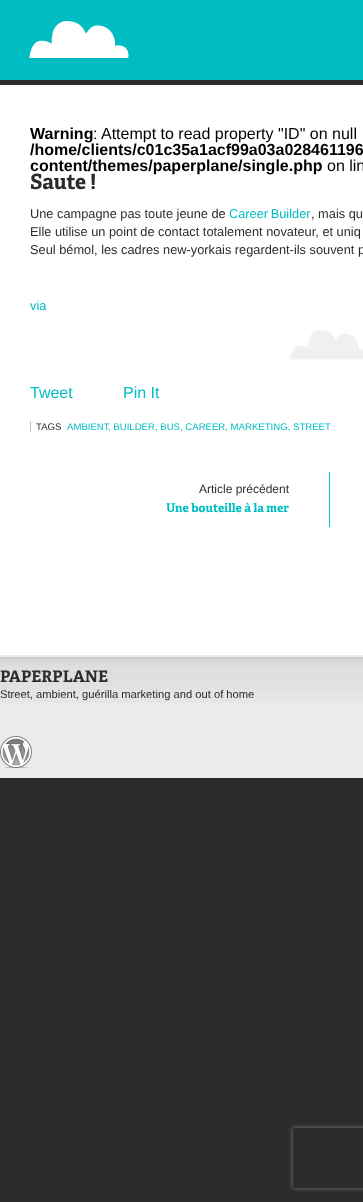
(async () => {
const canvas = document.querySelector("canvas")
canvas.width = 363
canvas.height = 1202
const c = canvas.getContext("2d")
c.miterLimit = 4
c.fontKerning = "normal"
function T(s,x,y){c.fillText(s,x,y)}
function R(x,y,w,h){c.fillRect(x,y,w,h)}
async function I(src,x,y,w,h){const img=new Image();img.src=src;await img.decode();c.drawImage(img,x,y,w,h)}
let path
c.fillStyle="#2c2c2c"
R(0,0,363,1202)
c.fillStyle="#fff"
R(0,85,363,570)
c.fillStyle="#00bdc4"
R(0,0,363,80)
await I("1.png",23,21,339,37)
c.font="bold 16px Liberation Sans"
c.fillStyle="#000"
T("Warning",30,139)
c.font="16px Liberation Sans"
T(":",93,139)
T("Attempt to read property \"ID\" on null",101,139)
c.font="bold 16px Liberation Sans"
T("/home/clients/c01c35a1acf99a03a028461196",30,155)
T("content/themes/paperplane/single.php",30,171)
c.font="16px Liberation Sans"
T("on lin",327,171)
c.font="bold 21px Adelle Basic"
c.fillStyle="#2c2c2c"
T("Saute !",30,189)
c.font="12.8px Liberation Sans"
T("Une campagne pas toute jeune de",30,218)
c.wordSpacing="-1px"
c.fillStyle="#00bdc4"
T("Career Builder",229,218)
c.wordSpacing="0px"
c.fillStyle="#2c2c2c"
T(", mais qu",311,218)
T("Elle utilise un point de contact totalement novateur, et uniq",30,236)
T("Seul bémol, les cadres new-yorkais regardent-ils souvent p",30,254)
c.fillStyle="#00bdc4"
T("via",30,310)
await I("2.png",290,330,73,30)
c.font="16px Liberation Sans"
T("Tweet",30,398)
T("Pin It",123,398)
c.font="9.6px Liberation Sans"
c.fillStyle="#2c2c2c"
T("TAGS",36,430)
c.fillStyle="#c4c4c4"
R(30,421,1,11)
c.fillStyle="#00bdc4"
T("AMBIENT",67,430)
T(", BUILDER, BUS, CAREER, MARKETING, STREET",108,430)
R(329,472,1,55)
c.font="12px Liberation Sans"
c.fillStyle="#2c2c2c"
T("Article précédent",199,493)
c.font="bold 12px Adelle Basic"
c.fillStyle="#00bdc4"
T("Une bouteille à la mer",166,512)
c.fillStyle="#ebebeb"
R(0,655,363,123)
await I("3.png",0,657,363,46)
c.font="bold 16px Adelle Basic"
c.fillStyle="#2c2c2c"
T("PAPERPLANE",0,682)
c.font="11.2px Liberation Sans"
T("Street, ambient, guérilla marketing and out of home",0,698)
await I("4.png",0,736,32,32)
c.save()
path = new Path2D("M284 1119h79v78h-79zm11 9h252c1 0 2 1 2 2v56c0 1-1 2-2 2h-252c-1 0-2-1-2-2v-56c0-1 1-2 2-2z")
c.clip(path,"evenodd")
c.fillStyle="#808080"
c.filter="blur(2.5px)"
c.beginPath()
c.roundRect(293,1128,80,60,2)
c.fill()
c.filter="none"
c.restore()
})()
